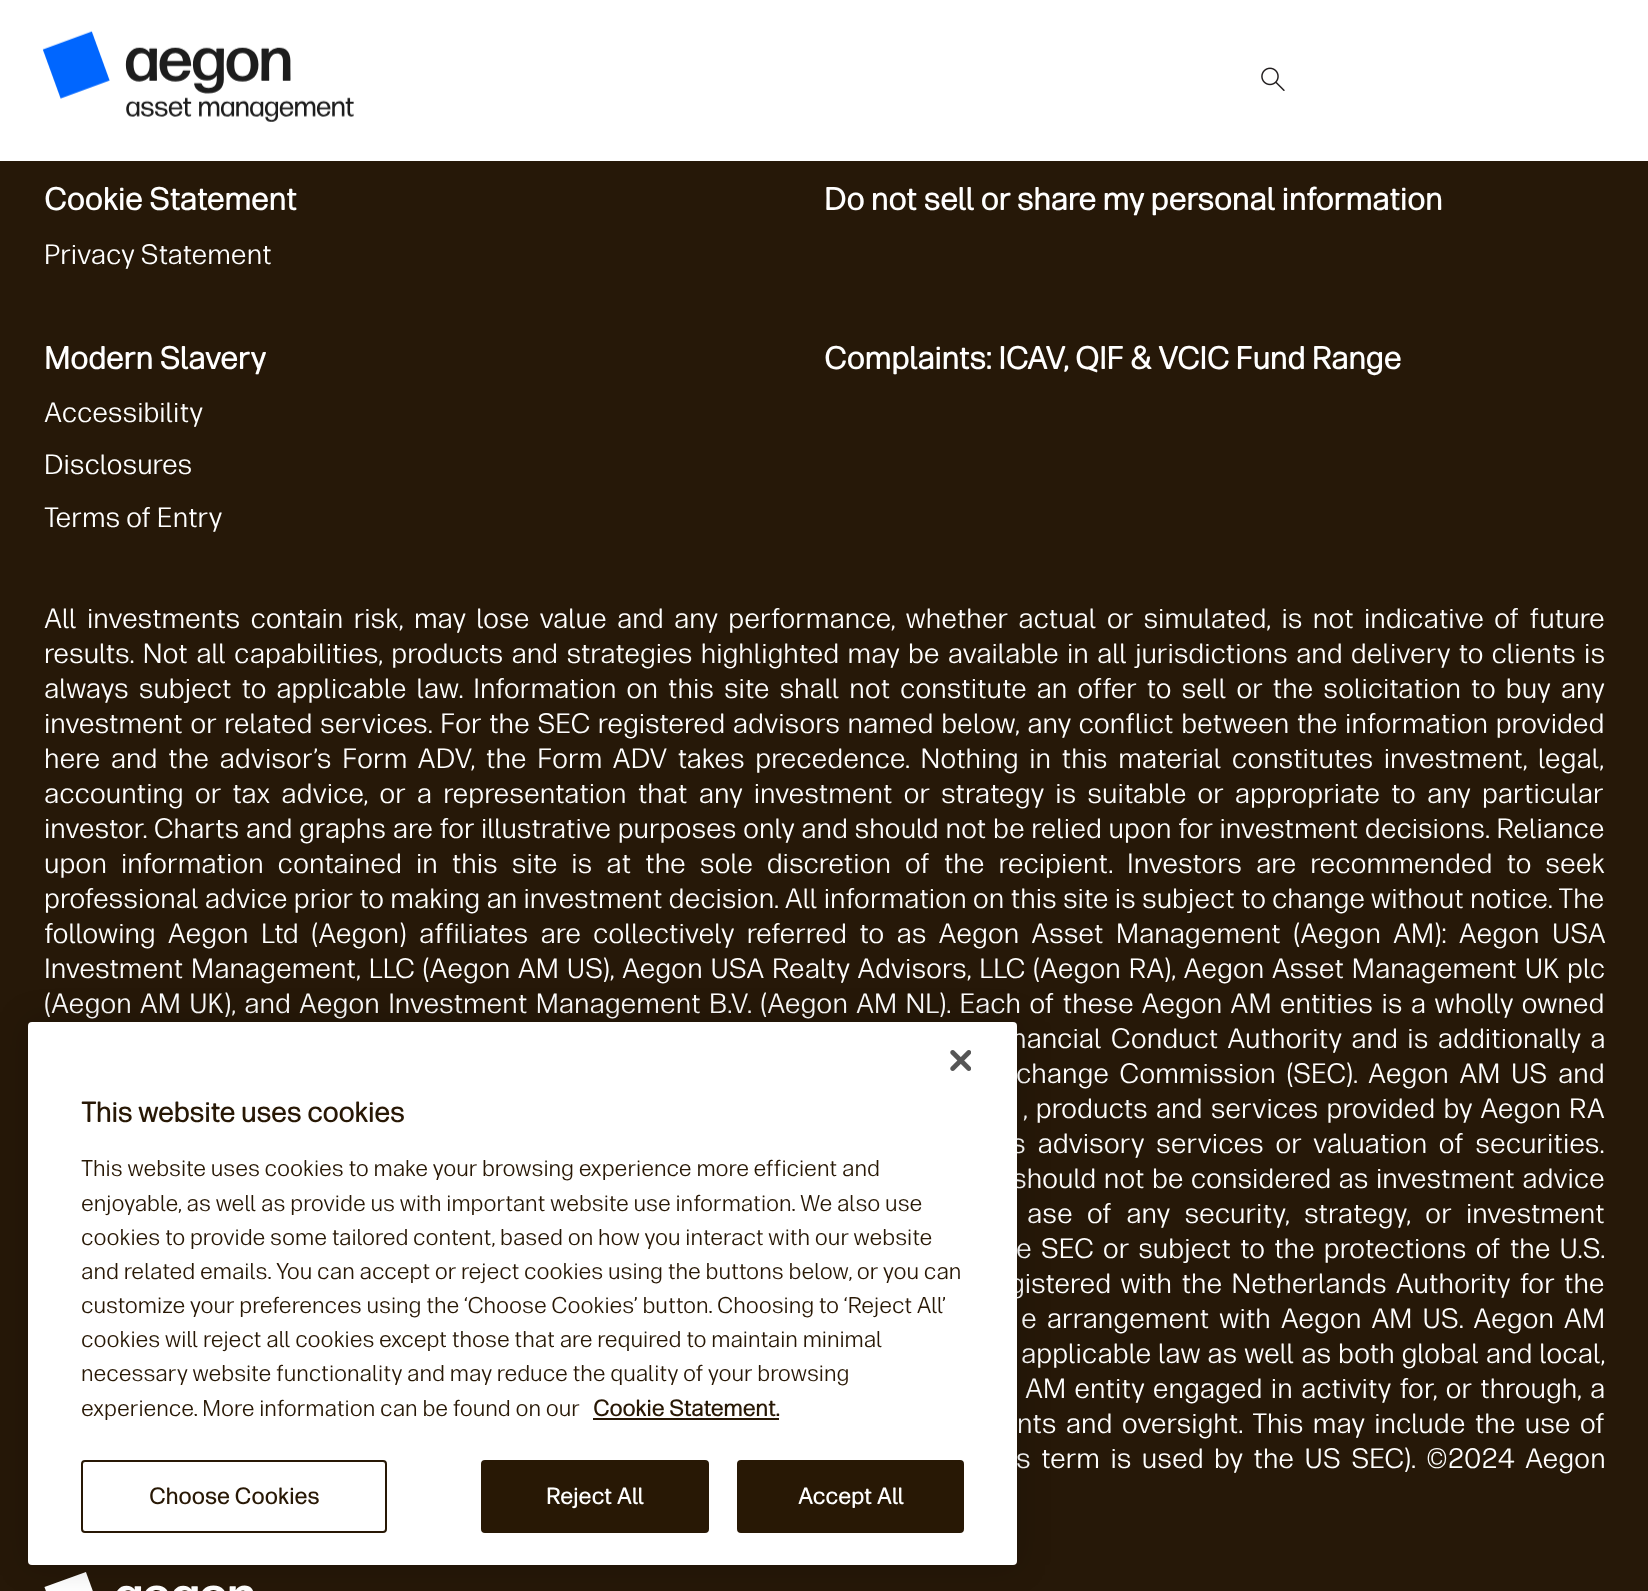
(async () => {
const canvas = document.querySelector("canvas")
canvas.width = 1648
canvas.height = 1591
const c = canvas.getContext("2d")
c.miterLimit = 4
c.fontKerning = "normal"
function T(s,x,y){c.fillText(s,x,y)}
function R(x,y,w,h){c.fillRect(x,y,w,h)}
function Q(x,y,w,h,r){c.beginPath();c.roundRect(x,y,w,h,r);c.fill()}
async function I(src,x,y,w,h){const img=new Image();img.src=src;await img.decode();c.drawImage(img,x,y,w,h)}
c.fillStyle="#261808"
R(0,0,1648,1591)
c.fillStyle="#fff"
R(0,0,1648,161)
await I("1.png",42,30,312,92)
await I("2.png",1261,67,24,24)
c.font="bold 31.5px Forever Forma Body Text"
T("Cookie Statement",44,210)
c.font="28px Forever Forma Body Text"
T("Privacy Statement",44,264)
c.font="bold 31.5px Forever Forma Body Text"
T("Do not sell or share my personal information",824,210)
T("Modern Slavery",44,369)
c.font="28px Forever Forma Body Text"
T("Accessibility",44,422)
T("Disclosures",44,474)
T("Terms of Entry",44,527)
c.font="bold 31.5px Forever Forma Body Text"
T("Complaints: ICAV, QIF & VCIC Fund Range",824,369)
c.wordSpacing="4.5px"
c.font="28px Forever Forma Body Text"
T("All investments contain risk, may lose value and any performance, whether actual or simulated, is not indicative of future",44,628)
c.wordSpacing="2.4px"
T("results. Not all capabilities, products and strategies highlighted may be available in all jurisdictions and delivery to clients is",44,663)
c.wordSpacing="4.1px"
T("always subject to applicable law. Information on this site shall not constitute an offer to sell or the solicitation to buy any",44,698)
c.wordSpacing="1.75px"
T("investment or related services. For the SEC registered advisors named below, any conflict between the information provided",44,733)
c.wordSpacing="4.75px"
T("here and the advisor’s Form ADV, the Form ADV takes precedence. Nothing in this material constitutes investment, legal,",44,768)
c.wordSpacing="5.25px"
T("accounting or tax advice, or a representation that any investment or strategy is suitable or appropriate to any particular",44,803)
c.wordSpacing="0.75px"
T("investor. Charts and graphs are for illustrative purposes only and should not be relied upon for investment decisions. Reliance",44,838)
c.wordSpacing="8.1px"
T("upon information contained in this site is at the sole discretion of the recipient. Investors are recommended to seek",44,873)
c.wordSpacing="0.4px"
T("professional advice prior to making an investment decision. All information on this site is subject to change without notice. The",44,908)
c.wordSpacing="6.5px"
T("following Aegon Ltd (Aegon) affiliates are collectively referred to as Aegon Asset Management (Aegon AM): Aegon USA",44,943)
c.wordSpacing="2px"
T("Investment Management, LLC (Aegon AM US), Aegon USA Realty Advisors, LLC (Aegon RA), Aegon Asset Management UK plc",44,978)
c.wordSpacing="2.5px"
T("(Aegon AM UK), and Aegon Investment Management B.V. (Aegon AM NL). Each of these Aegon AM entities is a wholly owned",44,1013)
c.wordSpacing="3.5px"
T("nancial Conduct Authority and is additionally a",1011,1048)
c.wordSpacing="4.75px"
T("change Commission (SEC). Aegon AM US and",1016,1083)
c.wordSpacing="2.25px"
T(", products and services provided by Aegon RA",1023,1118)
c.wordSpacing="5.75px"
T("s advisory services or valuation of securities.",1011,1153)
c.wordSpacing="1.5px"
T("should not be considered as investment advice",1012,1188)
c.wordSpacing="8.5px"
T("ase of any security, strategy, or investment",1027,1223)
c.wordSpacing="3.25px"
T("e SEC or subject to the protections of the U.S.",1016,1258)
c.wordSpacing="3.5px"
T("gistered with the Netherlands Authority for the",1009,1293)
c.wordSpacing="4.25px"
T("e arrangement with Aegon AM US. Aegon AM",1021,1328)
c.wordSpacing="1px"
T("applicable law as well as both global and local,",1021,1363)
c.wordSpacing="2.4px"
T("AM entity engaged in activity for, or through, a",1025,1398)
c.wordSpacing="3.5px"
T("nts and oversight. This may include the use of",1017,1433)
c.wordSpacing="4.5px"
T("s term is used by the US SEC). ©2024 Aegon",1016,1468)
await I("3.png",44,1572,209,19)
c.fillStyle="#00000033"
c.filter="blur(16px)"
c.beginPath()
c.roundRect(28,1022,989,543,4)
c.fill()
c.filter="none"
c.fillStyle="#fff"
Q(28,1022,989,543,4)
await I("4.png",950,1050,21,21)
c.wordSpacing="0px"
c.font="bold 28px Forever Forma Body Text"
c.fillStyle="#281805"
T("This website uses cookies",81,1122)
c.font="22.75px Forever Forma Body Text"
T("This website uses cookies to make your browsing experience more efficient and",81,1176)
T("enjoyable, as well as provide us with important website use information. We also use",81,1211)
T("cookies to provide some tailored content, based on how you interact with our website",81,1245)
T("and related emails. You can accept or reject cookies using the buttons below, or you can",81,1279)
T("customize your preferences using the ‘Choose Cookies’ button. Choosing to ‘Reject All’",81,1313)
T("cookies will reject all cookies except those that are required to maintain minimal",81,1347)
T("necessary website functionality and may reduce the quality of your browsing",81,1381)
T("experience. More information can be found on our",81,1416)
c.font="bold 22.75px Forever Forma Body Text"
T("Cookie Statement.",593,1416)
R(593,1418,186,2)
c.beginPath()
c.roundRect(82,1461,304,71,3)
c.strokeStyle="#281805"
c.lineWidth=2
c.stroke()
c.letterSpacing="0.25px"
T("Choose Cookies",149,1504)
c.beginPath()
c.roundRect(482,1461,226,71,3)
c.fill()
c.stroke()
c.fillStyle="#fff"
T("Reject All",546,1504)
c.fillStyle="#281805"
c.beginPath()
c.roundRect(738,1461,225,71,3)
c.fill()
c.stroke()
c.fillStyle="#fff"
T("Accept All",798,1504)
})()
